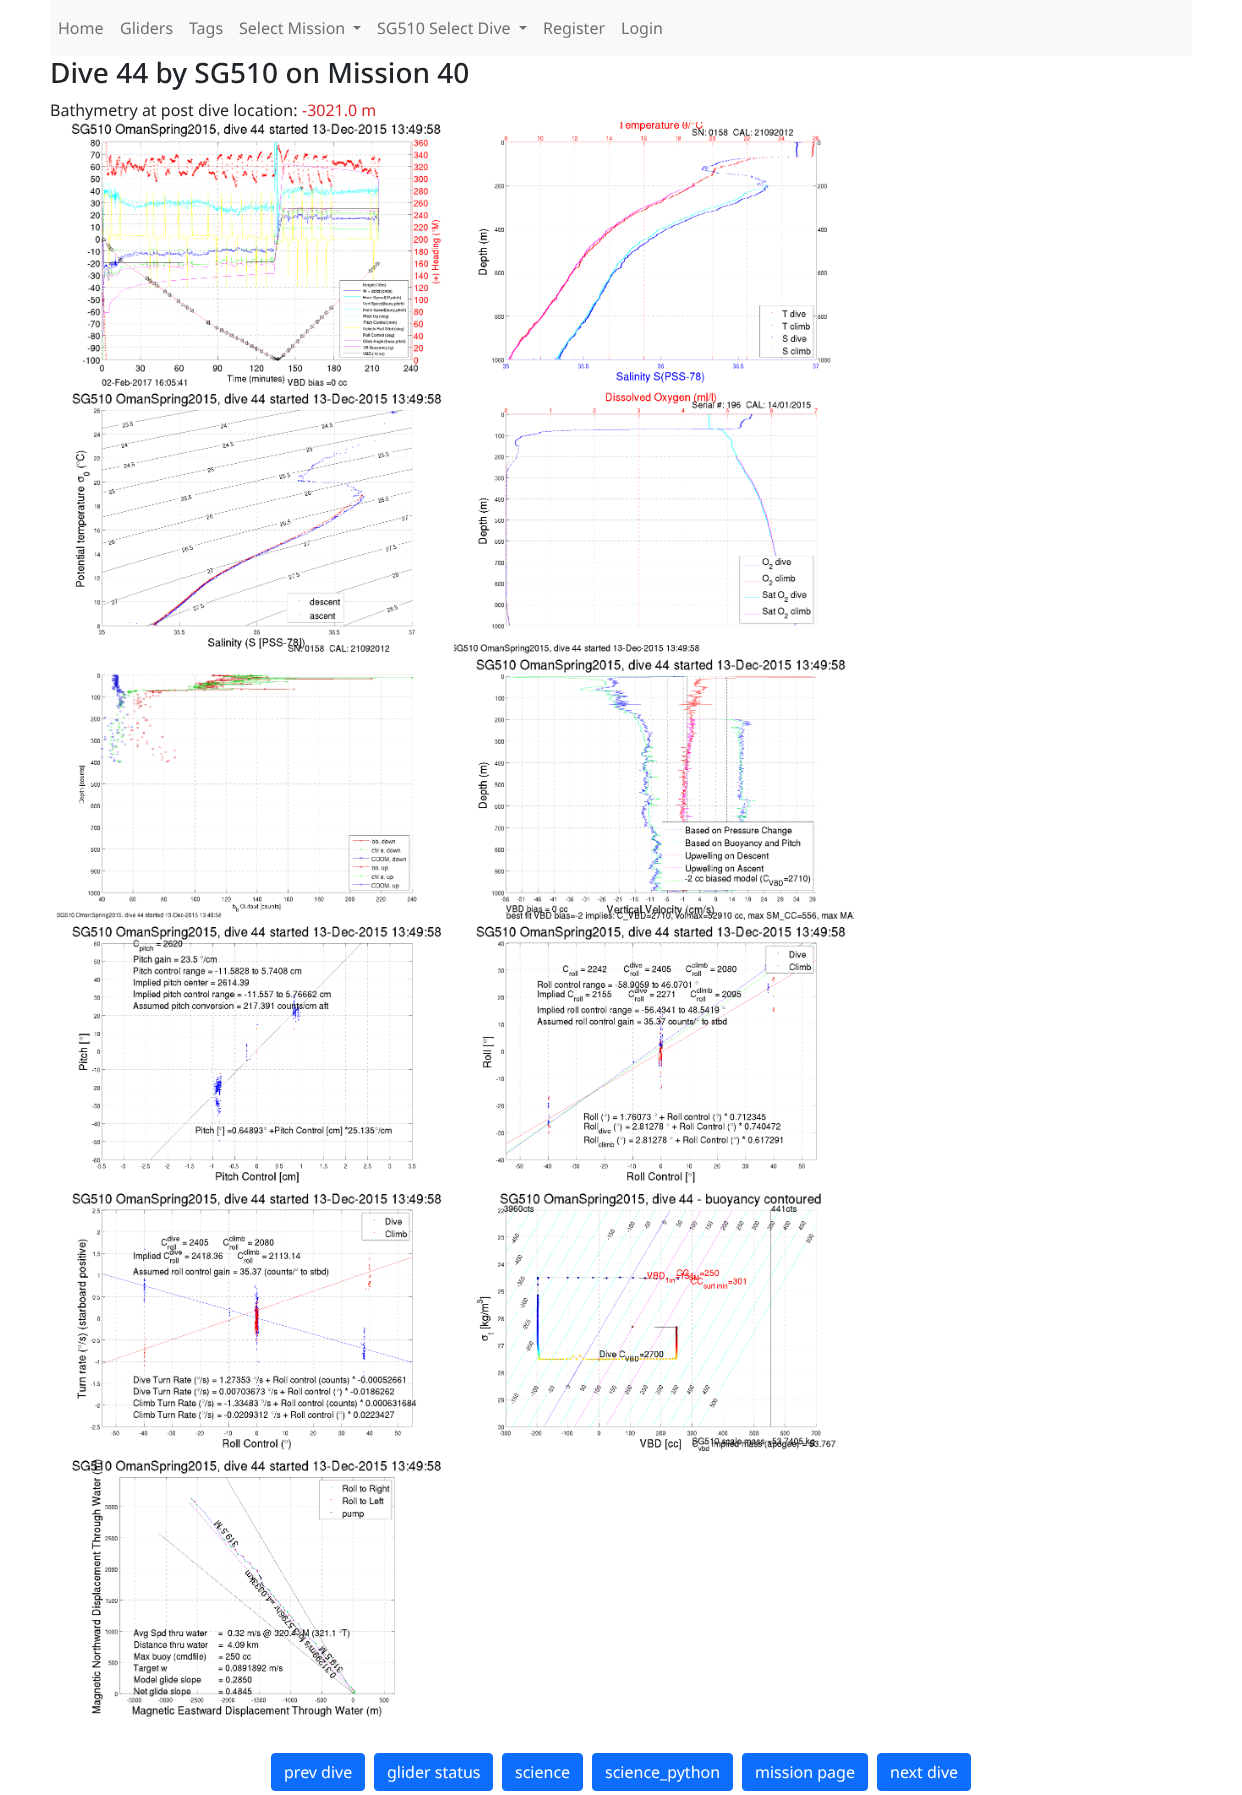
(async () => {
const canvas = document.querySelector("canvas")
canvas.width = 1242
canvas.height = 1795
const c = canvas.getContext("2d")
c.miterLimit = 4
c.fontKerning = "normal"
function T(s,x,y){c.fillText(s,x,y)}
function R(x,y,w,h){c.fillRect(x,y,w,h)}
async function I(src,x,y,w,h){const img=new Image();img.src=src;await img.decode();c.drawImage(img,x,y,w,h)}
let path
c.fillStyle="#fff"
R(0,0,1242,1795)
c.fillStyle="#f8f9fa"
R(50,0,1142,56)
c.font="16px Noto Sans"
c.fillStyle="#707071"
T("Home",58,34)
T("Gliders",120,34)
T("Tags",189,34)
T("Select Mission",239,34)
path = new Path2D("M353 26h8l-4 4z")
c.fill(path)
T("SG510 Select Dive",377,34)
path = new Path2D("M519 26h8l-4 4z")
c.fill(path)
T("Register",543,34)
T("Login",621,34)
c.font="500 28px Noto Sans"
c.fillStyle="#212529"
T("Dive 44 by SG510 on Mission 40",50,83)
c.font="16px Noto Sans"
T("Bathymetry at post dive location:",50,116)
c.fillStyle="#d92727"
T("-3021.0 m",302,116)
await I("1.png",71,123,370,263)
await I("2.png",478,122,353,262)
await I("3.png",72,393,370,259)
await I("4.png",454,392,364,262)
await I("5.png",56,673,361,246)
await I("6.png",476,659,378,263)
await I("7.png",72,926,370,258)
await I("8.png",476,926,370,258)
await I("9.png",72,1193,370,257)
await I("10.png",476,1193,360,258)
await I("11.png",72,1459,369,259)
c.fillStyle="#0d6efd"
c.beginPath()
c.roundRect(271.5,1753.5,93,37,3.5)
c.fill()
c.strokeStyle="#0d6efd"
c.stroke()
c.fillStyle="#fff"
T("prev dive",284,1778)
c.fillStyle="#0d6efd"
c.beginPath()
c.roundRect(374.5,1753.5,118,37,3.5)
c.fill()
c.stroke()
c.fillStyle="#fff"
T("glider status",387,1778)
c.fillStyle="#0d6efd"
c.beginPath()
c.roundRect(502.5,1753.5,80,37,3.5)
c.fill()
c.stroke()
c.fillStyle="#fff"
T("science",515,1778)
c.fillStyle="#0d6efd"
c.beginPath()
c.roundRect(592.5,1753.5,140,37,3.5)
c.fill()
c.stroke()
c.fillStyle="#fff"
T("science_python",605,1778)
c.fillStyle="#0d6efd"
c.beginPath()
c.roundRect(742.5,1753.5,125,37,3.5)
c.fill()
c.stroke()
c.fillStyle="#fff"
T("mission page",755,1778)
c.fillStyle="#0d6efd"
c.beginPath()
c.roundRect(877.5,1753.5,93,37,3.5)
c.fill()
c.stroke()
c.fillStyle="#fff"
T("next dive",890,1778)
})()
